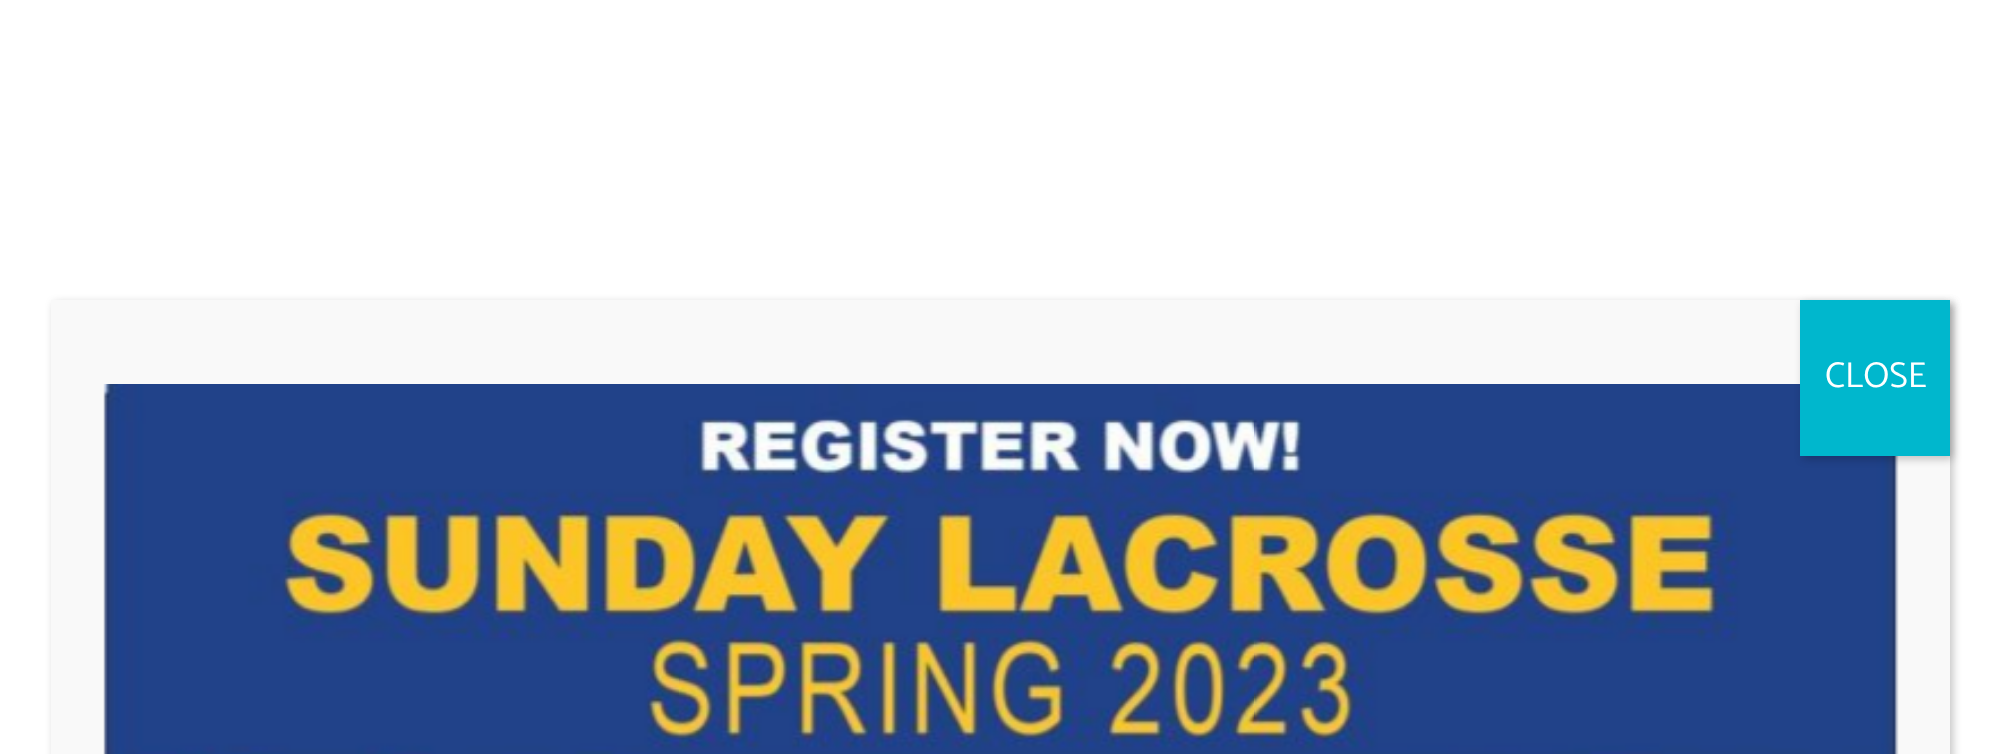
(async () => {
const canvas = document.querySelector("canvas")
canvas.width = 2000
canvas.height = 754
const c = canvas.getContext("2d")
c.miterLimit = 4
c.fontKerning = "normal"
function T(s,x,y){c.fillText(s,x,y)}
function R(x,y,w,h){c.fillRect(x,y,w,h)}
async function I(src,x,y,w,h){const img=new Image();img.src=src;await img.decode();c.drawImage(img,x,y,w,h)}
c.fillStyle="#fff"
R(0,0,2000,754)
c.fillStyle="#0202023b"
c.filter="blur(4.5px)"
c.beginPath()
c.rect(54,303,1899,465)
c.fill()
c.filter="none"
c.fillStyle="#f9f9f9"
R(51,300,1899,454)
await I("1.png",103,384,1796,370)
c.fillStyle="#0202023b"
c.filter="blur(4.5px)"
c.beginPath()
c.rect(1803,303,150,156)
c.fill()
c.filter="none"
c.fillStyle="#00b7cd"
R(1800,300,150,156)
c.font="36px Catamaran"
c.fillStyle="#fff"
T("CLOSE",1825,387)
})()
